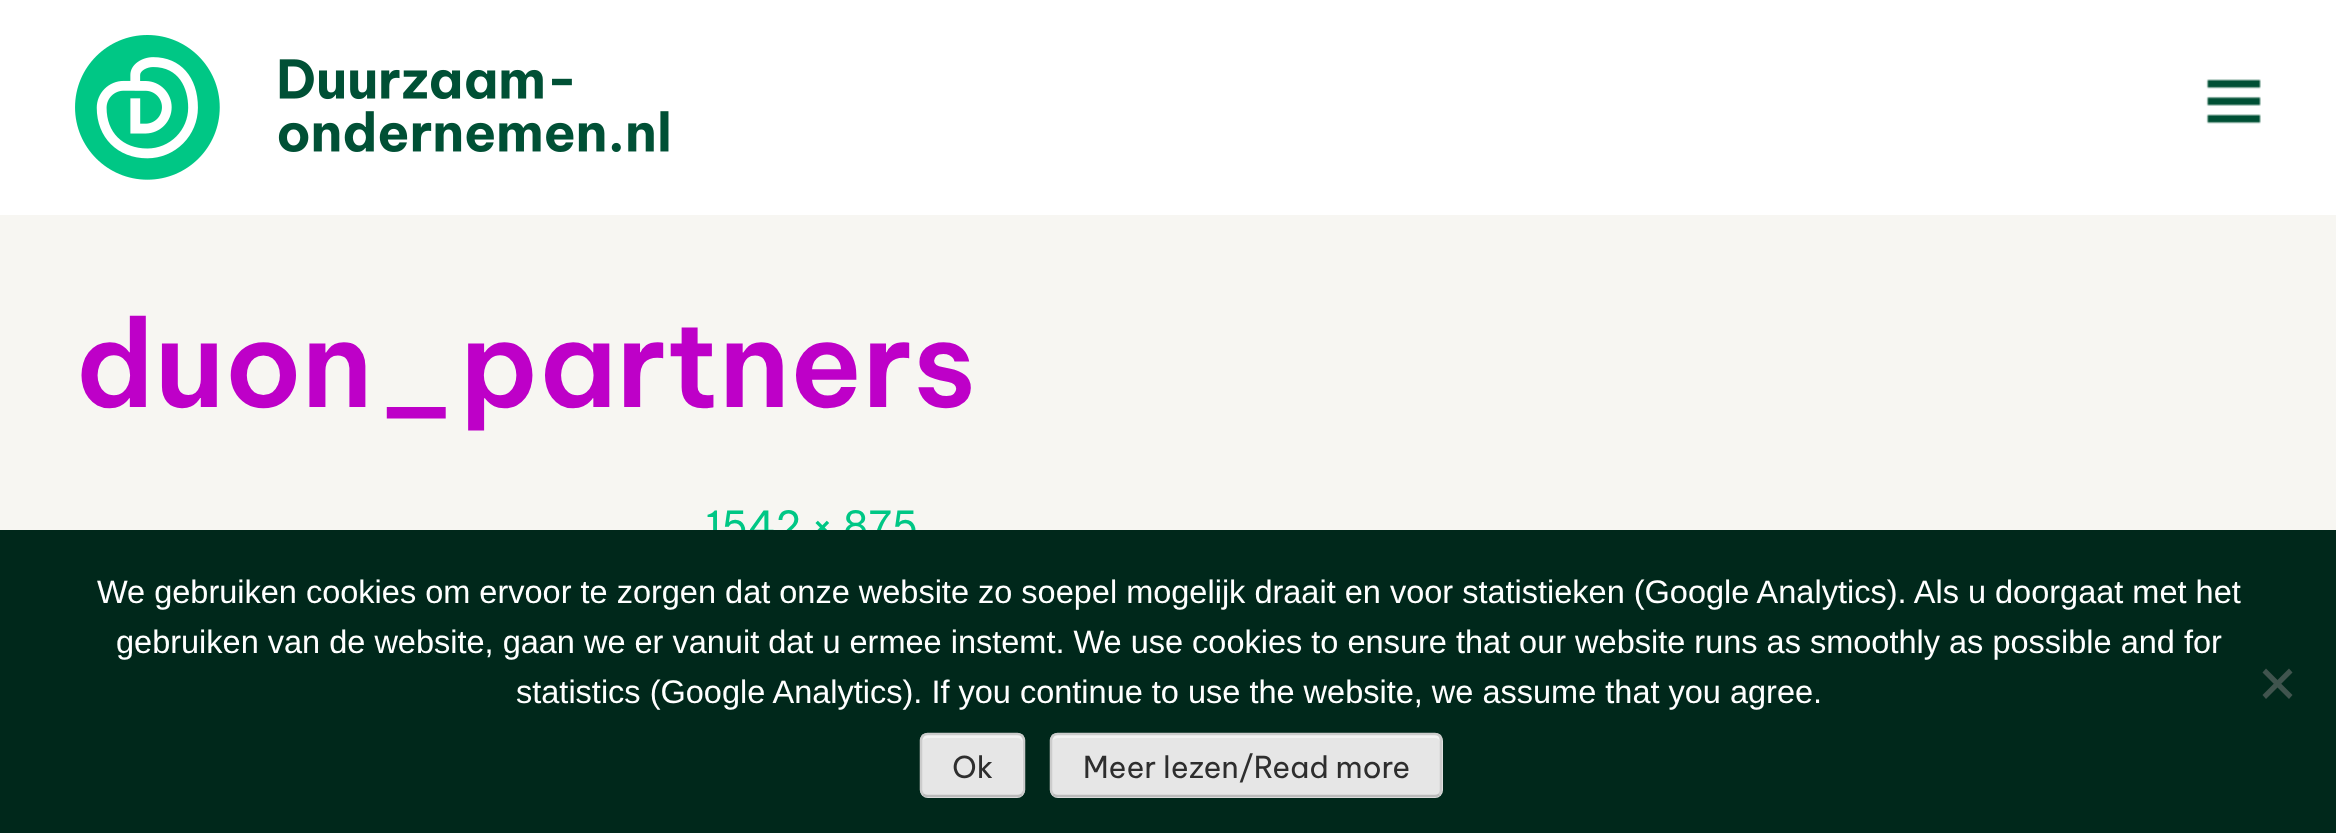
(async () => {
const canvas = document.querySelector("canvas")
canvas.width = 2336
canvas.height = 833
const c = canvas.getContext("2d")
c.miterLimit = 4
c.fontKerning = "normal"
function T(s,x,y){c.fillText(s,x,y)}
function R(x,y,w,h){c.fillRect(x,y,w,h)}
function Q(x,y,w,h,r){c.beginPath();c.roundRect(x,y,w,h,r);c.fill()}
async function I(src,x,y,w,h){const img=new Image();img.src=src;await img.decode();c.drawImage(img,x,y,w,h)}
let path
c.fillStyle="#f7f6f2"
R(0,0,2336,833)
c.fillStyle="#fff"
R(0,0,2336,215)
await I("1.png",75,35,594,145)
await I("2.png",2206,79,55,45)
c.font="600 120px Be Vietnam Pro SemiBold"
c.fillStyle="#be00c8"
T("duon_partners",75,407)
c.font="40px Be Vietnam Pro"
c.fillStyle="#00c785"
T("1542 × 875",706,540)
c.fillStyle="#00281b"
R(0,530,2336,303)
c.font="32.5px Liberation Sans"
c.fillStyle="#fff"
T("We gebruiken cookies om ervoor te zorgen dat onze website zo soepel mogelijk draait en voor statistieken (Google Analytics). Als u doorgaat met het",97,603)
T("gebruiken van de website, gaan we er vanuit dat u ermee instemt. We use cookies to ensure that our website runs as smoothly as possible and for",116,653)
T("statistics (Google Analytics). If you continue to use the website, we assume that you agree.",516,703)
c.fillStyle="#40544e"
path = new Path2D("M2289 668.5l3.5 4l-26.5 26.5l-3.5-4z")
c.fill(path)
path = new Path2D("M2262.5 672.5l3.5-4l26.5 26.5l-3.5 4z")
c.fill(path)
c.fillStyle="#e6e6e6"
Q(920,733,105,65,8)
c.fillStyle="#f3f3f3"
path = new Path2D("M928 738h75c23 0 19-3 19 21v34c1-1 1-2 1-3v-50c0-3-2-5-5-5h-90c-3 0-5 2-5 5c1-1 3-2 5-2z")
c.fill(path)
path = new Path2D("M1022 794.5c-1.5 1-3 1.5-4.5 1.5h-90c-1.5 0-3-.5-4.5-1.5")
c.strokeStyle="#bbb"
c.lineWidth=2.5
c.stroke(path)
path = new Path2D("M923 794.5c-1-1.5-2-3-2-4.5v-50c0-1.5 1-3 2-4.5c1.5-1 3-1.5 4.5-1.5h90c1.5 0 3 .5 4.5 1.5c1 1.5 2 3 2 4.5v50c0 1.5-1 3-2 4.5")
c.strokeStyle="#ccc"
c.stroke(path)
c.font="30px Be Vietnam Pro"
c.fillStyle="#2e2e2e"
T("Ok",952,778)
c.fillStyle="#e6e6e6"
Q(1050,733,393,65,8)
c.fillStyle="#f3f3f3"
path = new Path2D("M1058 738h377c3 0 5 2 5 4c0-3-1-7-5-7h-377c-3 0-5 2-5 5c1-1 3-2 5-2z")
c.fill(path)
path = new Path2D("M1439.5 794.5c-1.5 1-3 1.5-4.5 1.5h-377.5c-1.5 0-3-.5-4.5-1.5")
c.strokeStyle="#bbb"
c.stroke(path)
path = new Path2D("M1053 794.5c-1-1.5-2-3-2-4.5v-50c0-1.5 1-3 2-4.5c1.5-1 3-1.5 4.5-1.5h377.5c1.5 0 3 .5 4.5 1.5c1 1.5 1.5 3 1.5 4.5v50c0 1.5-.5 3-1.5 4.5")
c.strokeStyle="#ccc"
c.stroke(path)
c.fillStyle="#2e2e2e"
T("Meer lezen/Read more",1083,778)
})()
